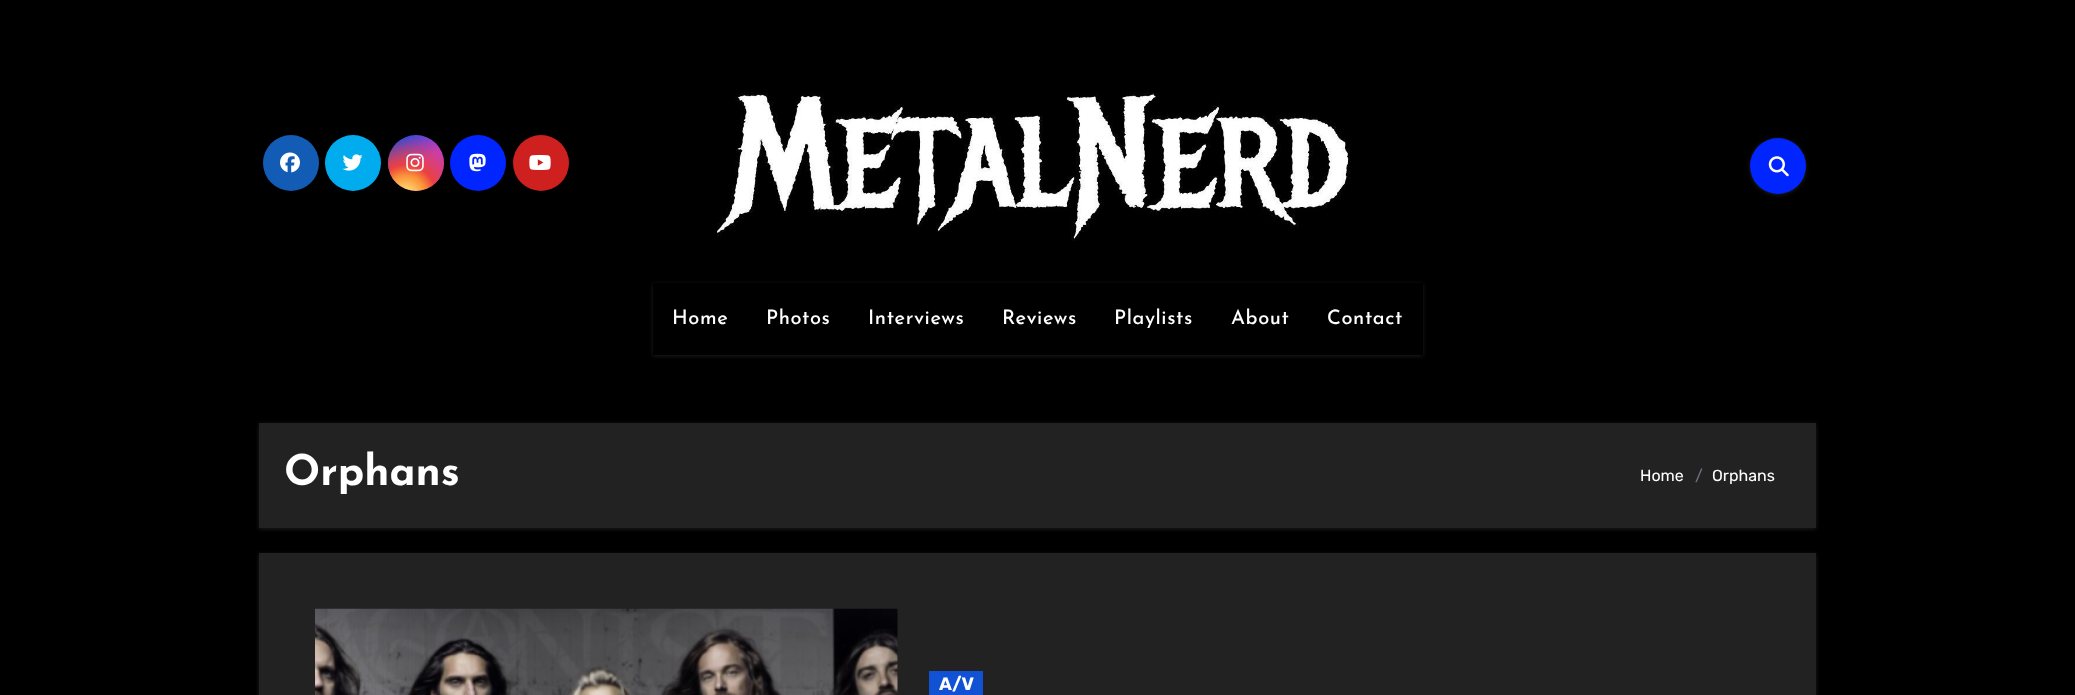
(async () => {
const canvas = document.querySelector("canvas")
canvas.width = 2075
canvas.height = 695
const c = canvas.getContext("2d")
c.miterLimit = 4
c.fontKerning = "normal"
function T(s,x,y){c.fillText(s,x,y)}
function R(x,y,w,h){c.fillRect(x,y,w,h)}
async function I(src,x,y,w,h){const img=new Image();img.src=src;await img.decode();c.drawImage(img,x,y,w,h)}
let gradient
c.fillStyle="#000"
R(0,0,2075,695)
c.fillStyle="#135cb6"
c.beginPath()
c.arc(291,163,28,0,7)
c.fill()
await I("1.png",280,152,20,21)
c.fillStyle="#00aced"
c.beginPath()
c.arc(353,163,28,0,7)
c.fill()
await I("2.png",342,154,21,17)
gradient = c.createLinearGradient(388,135,444,191)
gradient.addColorStop(.12,"#234bd7")
gradient.addColorStop(.58,"#c33cbe")
c.fillStyle = gradient
c.beginPath()
c.arc(416,163,28,0,7)
c.fill()
gradient = c.createRadialGradient(406,195,0,406,195,71)
gradient.addColorStop(0,"#ffe17d")
gradient.addColorStop(.1,"#ffcd69")
gradient.addColorStop(.28,"#fa9137")
gradient.addColorStop(.42,"#eb4141")
gradient.addColorStop(.82,"#eb414100")
c.fillStyle = gradient
c.beginPath()
c.arc(416,163,28,0,7)
c.fill()
await I("3.png",406,153,18,19)
c.fillStyle="#0025ff"
c.beginPath()
c.arc(478,163,28,0,7)
c.fill()
await I("4.png",469,153,17,19)
c.fillStyle="#cd201f"
c.beginPath()
c.arc(541,163,28,0,7)
c.fill()
await I("5.png",529,155,22,15)
await I("6.png",717,92,634,149)
c.fillStyle="#b9b9b926"
c.filter="blur(2px)"
c.beginPath()
c.roundRect(1750,139,56,56,28)
c.fill()
c.filter="none"
c.fillStyle="#0025ff"
c.beginPath()
c.arc(1778,166,28,0,7)
c.fill()
await I("7.png",1768,156,21,21)
c.fillStyle="#b9b9b926"
c.filter="blur(2px)"
c.beginPath()
c.rect(653,284,770,72)
c.fill()
c.filter="none"
c.fillStyle="#000"
R(653,283,770,72)
c.letterSpacing="0.6px"
c.font="500 20px Josefin Sans"
c.fillStyle="#fff"
T("Home",672,324)
T("Photos",766,324)
T("Interviews",868,324)
T("Reviews",1002,324)
T("Playlists",1114,324)
T("About",1231,324)
T("Contact",1327,324)
c.fillStyle="#b9b9b926"
c.filter="blur(2px)"
c.beginPath()
c.rect(259,424,1557,105)
c.fill()
c.filter="none"
c.fillStyle="#222"
R(259,423,1557,105)
c.letterSpacing="0px"
c.font="bold 42.5px Josefin Sans"
c.fillStyle="#fff"
T("Orphans",284,485)
c.font="300 16px Rubik"
T("Home",1640,481)
c.fillStyle="#6c757d"
T("/",1695,481)
c.fillStyle="#fff"
T("Orphans",1712,481)
c.fillStyle="#b9b9b926"
c.filter="blur(2px)"
c.beginPath()
c.rect(259,554,1557,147)
c.fill()
c.filter="none"
c.fillStyle="#222"
R(259,553,1557,142)
await I("8.png",315,608,583,87)
c.fillStyle="#1151d3"
R(929,671,54,24)
c.font="bold 18px Rubik"
c.fillStyle="#fff"
T("A/V",939,690)
})()
